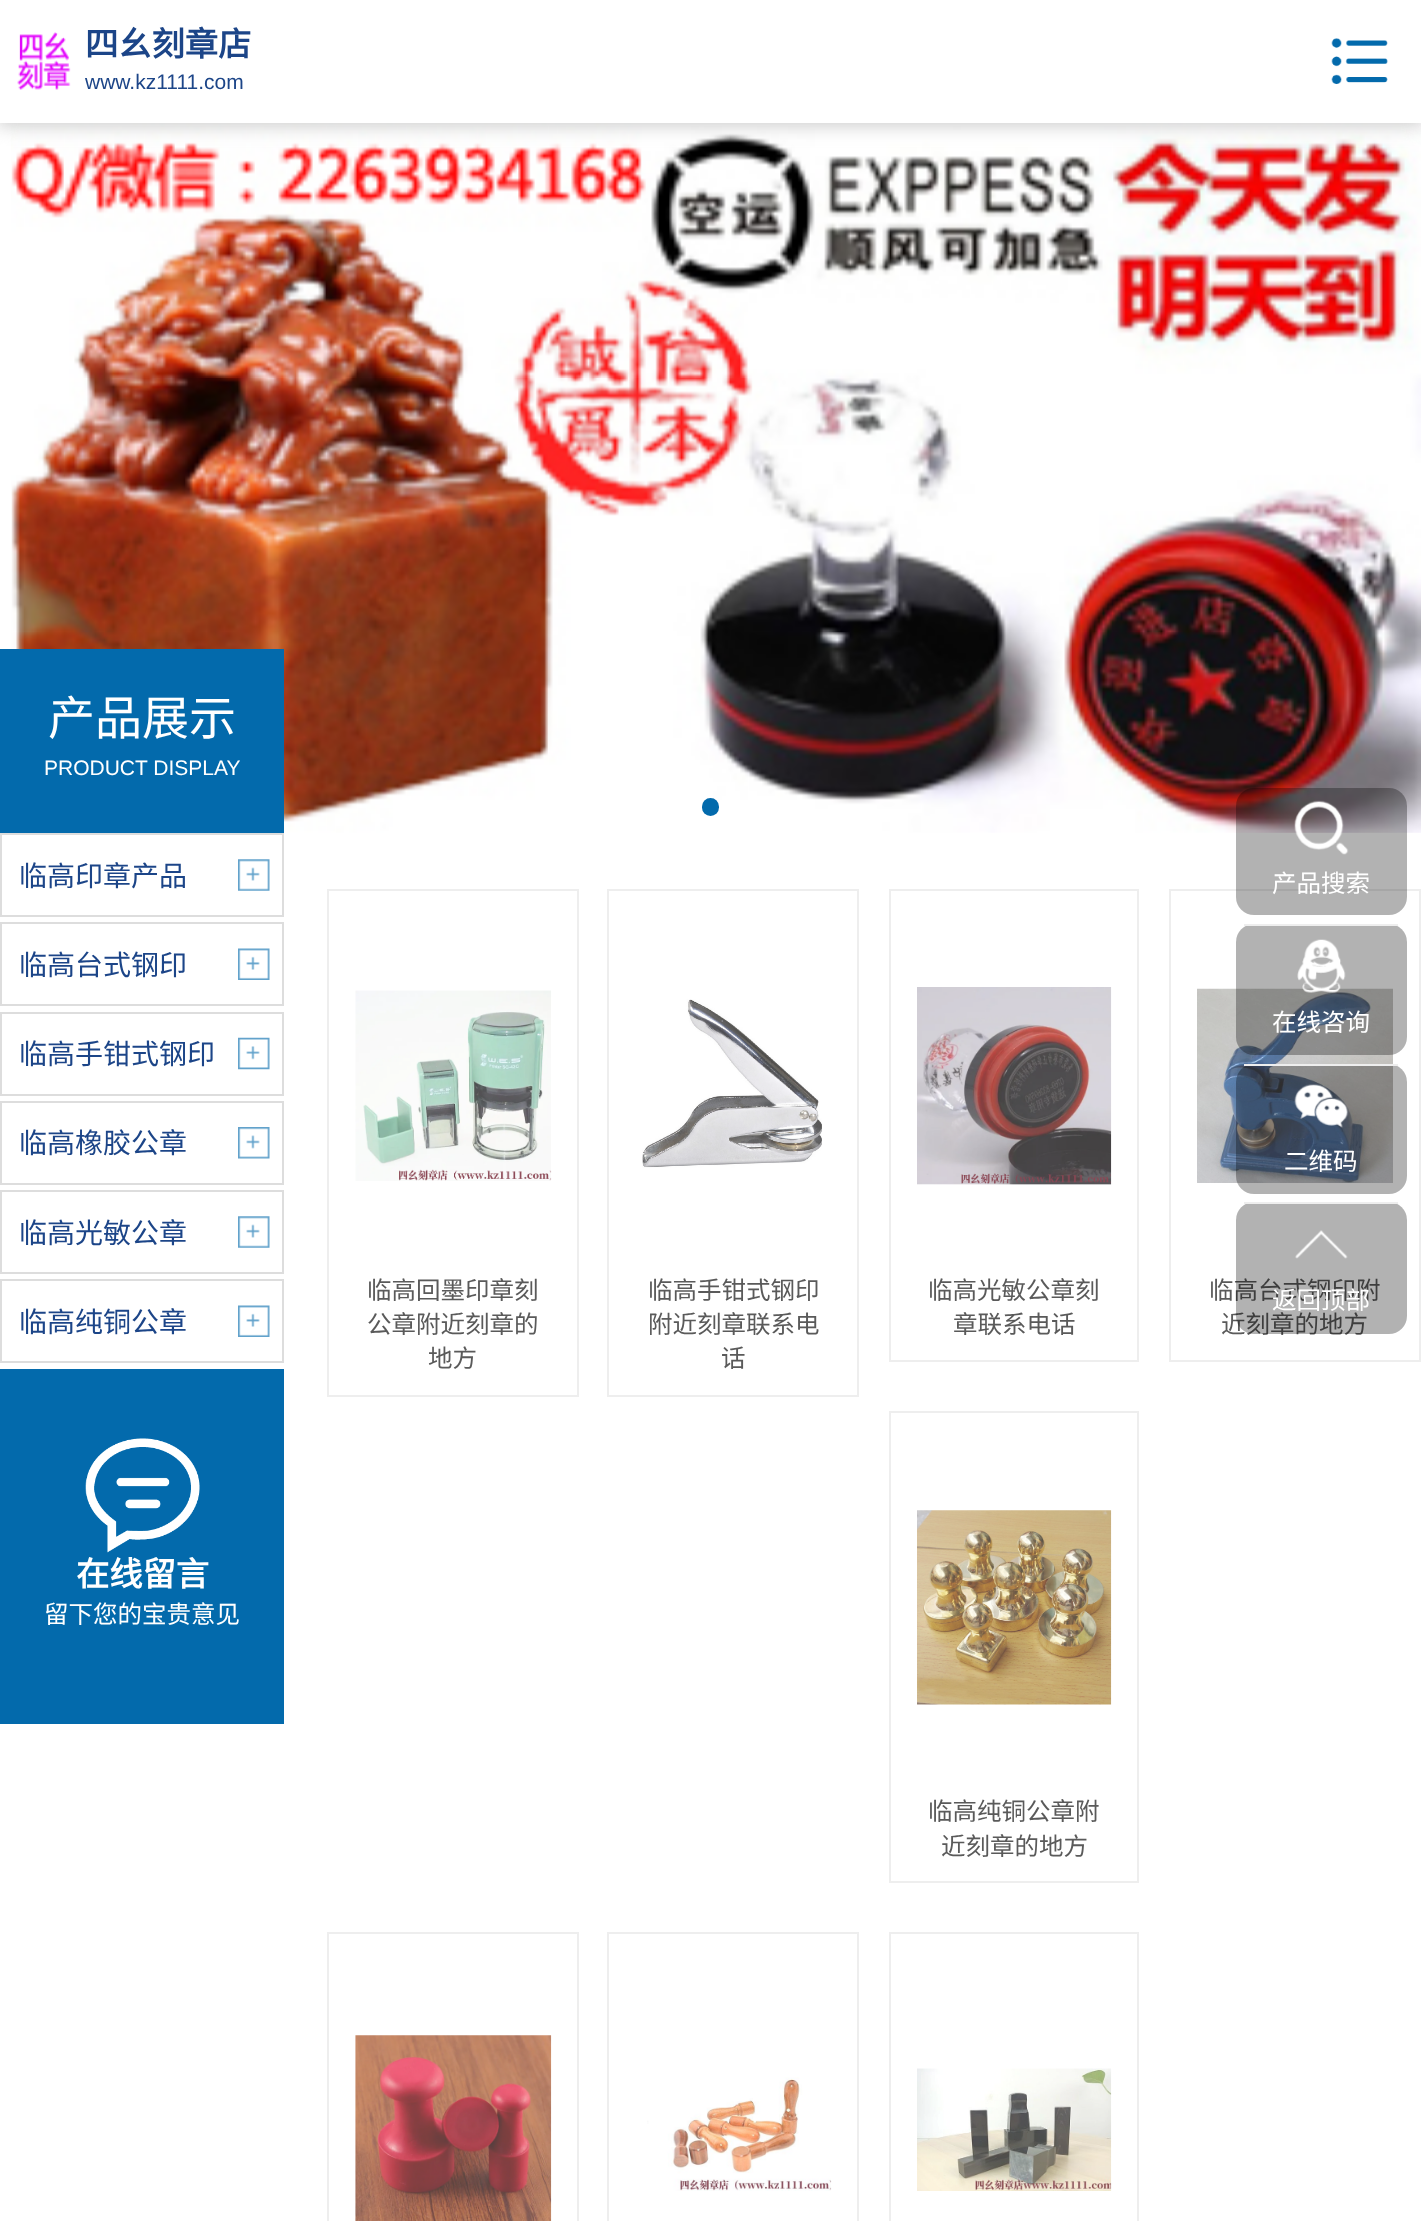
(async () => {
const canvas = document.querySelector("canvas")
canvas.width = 1421
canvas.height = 2221
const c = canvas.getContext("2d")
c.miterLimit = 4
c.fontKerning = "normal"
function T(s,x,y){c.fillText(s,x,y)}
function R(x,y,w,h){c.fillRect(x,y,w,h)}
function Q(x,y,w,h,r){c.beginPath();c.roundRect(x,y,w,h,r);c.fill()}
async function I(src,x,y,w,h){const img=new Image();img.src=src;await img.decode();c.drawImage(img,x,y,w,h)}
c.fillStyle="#fff"
R(0,0,1421,2221)
await I("3.png",11,123,1410,710)
c.fillStyle="#ccc"
c.filter="blur(9px)"
c.beginPath()
c.rect(-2,0,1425,126)
c.fill()
c.filter="none"
c.fillStyle="#fff"
R(0,0,1421,123)
await I("1.png",17,32,54,58)
c.font="bold 33.25px Noto Sans CJK SC"
c.fillStyle="#1c4588"
T("四幺刻章店",85,56)
c.font="21px Liberation Sans"
T("www.kz1111.com",85,89)
await I("2.png",1331,38,57,46)
c.fillStyle="#036aac"
Q(702,798,17,18,8.5)
R(0,649,284,184)
c.font="47px Noto Sans CJK SC"
c.fillStyle="#fff"
T("产品展示",48,735)
c.font="21px Liberation Sans"
T("PRODUCT DISPLAY",44,775)
await I("4.png",238,859,32,32)
c.strokeStyle="#ddd"
c.lineWidth=2
c.strokeRect(1,834,282,82)
c.font="28px Noto Sans CJK SC"
c.fillStyle="#1c4588"
T("临高印章产品",19,886)
await I("5.png",238,948,32,32)
c.strokeRect(1,923,282,82)
T("临高台式钢印",19,975)
await I("6.png",238,1037,32,33)
c.strokeRect(1,1013,282,82)
T("临高手钳式钢印",19,1064)
await I("7.png",238,1127,32,32)
c.strokeRect(1,1102,282,82)
T("临高橡胶公章",19,1153)
await I("4.png",238,1216,32,32)
c.strokeRect(1,1191,282,82)
T("临高光敏公章",19,1243)
await I("5.png",238,1305,32,32)
c.strokeRect(1,1280,282,82)
T("临高纯铜公章",19,1332)
c.fillStyle="#036aac"
R(0,1369,284,355)
await I("8.png",85,1438,115,115)
c.font="bold 33.25px Noto Sans CJK SC"
c.fillStyle="#fff"
T("在线留言",76,1586)
c.font="24.5px Noto Sans CJK SC"
T("留下您的宝贵意见",44,1623)
c.strokeStyle="#eee"
c.strokeRect(328,890,250,506)
await I("9.png",355,990,197,191)
c.fillStyle="#5a5a5a"
T("临高回墨印章刻",367,1299)
T("公章附近刻章的",367,1333)
T("地方",428,1367)
c.strokeRect(608,890,250,506)
await I("10.png",642,999,180,169)
T("临高手钳式钢印",648,1299)
T("附近刻章联系电",648,1333)
T("话",721,1367)
c.strokeRect(890,890,248,471)
await I("11.png",917,987,195,198)
T("临高光敏公章刻",928,1299)
T("章联系电话",953,1333)
c.strokeRect(1170,890,250,471)
await I("12.png",1197,988,196,195)
T("临高台式钢印附",1209,1299)
T("近刻章的地方",1221,1333)
c.strokeRect(890,1412,248,470)
await I("13.png",917,1510,195,195)
T("临高纯铜公章附",928,1820)
T("近刻章的地方",941,1855)
c.strokeRect(328,1933,250,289)
await I("14.png",355,2035,197,186)
c.strokeRect(608,1933,250,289)
await I("15.png",647,2077,185,114)
c.strokeRect(890,1933,248,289)
await I("16.png",917,2068,195,123)
c.fillStyle="#0000004d"
Q(1236,788,171,127,18)
await I("17.png",1294,800,55,55)
c.fillStyle="#fff"
T("产品搜索",1272,892)
c.fillStyle="#0000004d"
Q(1236,924,171,131,18)
c.fillStyle="#eee"
R(1244,924,154,2)
await I("18.png",1297,939,49,54)
c.fillStyle="#fff"
T("在线咨询",1272,1031)
c.fillStyle="#0000004d"
Q(1236,1064,171,130,18)
c.fillStyle="#eee"
R(1244,1064,154,2)
await I("19.png",1294,1084,55,44)
c.fillStyle="#fff"
T("二维码",1284,1170)
c.fillStyle="#0000004d"
Q(1236,1202,171,132,18)
c.fillStyle="#eee"
R(1244,1202,154,2)
await I("20.png",1295,1230,53,29)
c.fillStyle="#fff"
T("返回顶部",1272,1309)
})()
